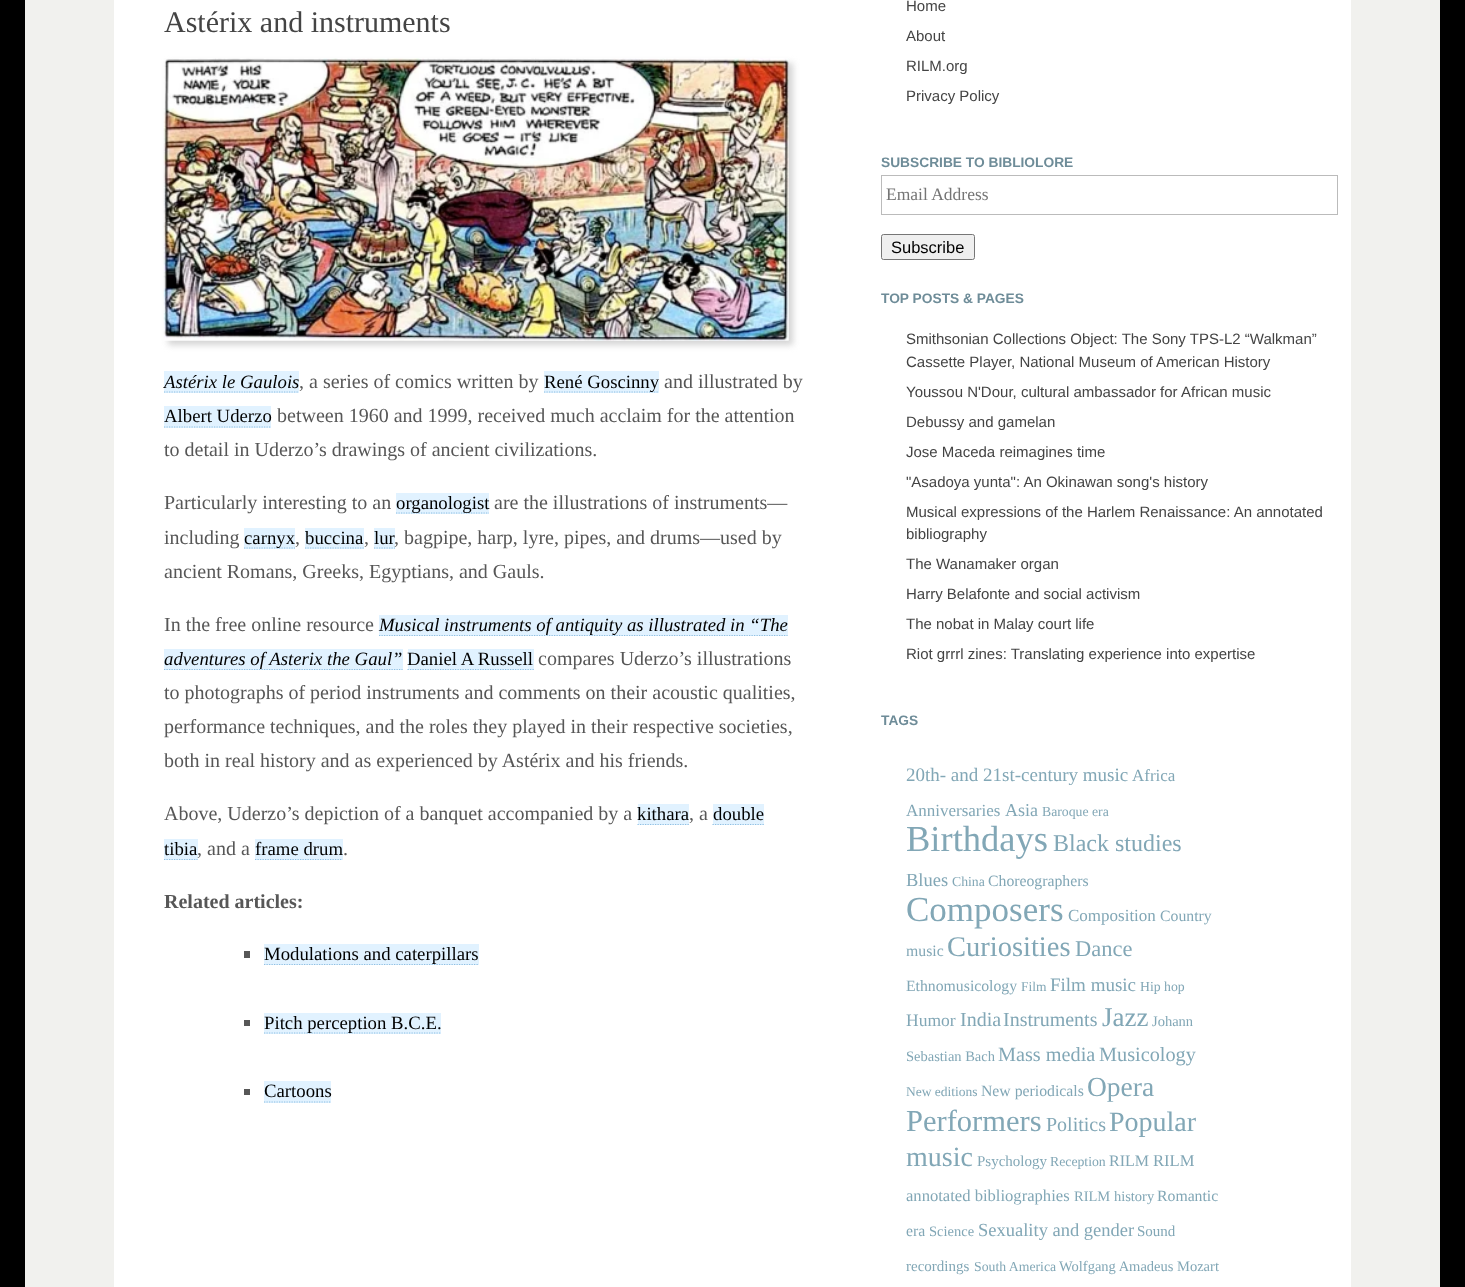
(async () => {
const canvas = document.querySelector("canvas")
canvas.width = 1465
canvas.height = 1287
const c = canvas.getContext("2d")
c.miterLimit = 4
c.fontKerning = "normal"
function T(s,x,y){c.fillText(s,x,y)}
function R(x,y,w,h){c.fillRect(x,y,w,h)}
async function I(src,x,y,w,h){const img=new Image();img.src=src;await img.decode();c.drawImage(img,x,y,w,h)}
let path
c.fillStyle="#f1f1ee"
R(0,0,1465,1287)
c.fillStyle="#000"
R(1440,0,25,1287)
R(0,0,25,1287)
c.fillStyle="#fff"
R(114,0,1237,1287)
c.font="30px Liberation Serif"
c.fillStyle="#444"
T("Astérix and instruments",164,32)
c.fillStyle="#d4d4d4"
c.filter="blur(3px)"
c.beginPath()
c.rect(168,63,625,282)
c.fill()
c.filter="none"
await I("1.png",163,58,626,283)
c.fillStyle="#e1f2ff"
R(164,371,135,22)
c.font="italic 18.75px Liberation Serif"
c.fillStyle="#000"
T("Astérix le Gaulois",164,388)
path = new Path2D("M164 392h135")
c.strokeStyle="#8fbfe2"
c.lineWidth=1.2
c.setLineDash([1.25,1.25])
c.stroke(path)
c.font="20px Liberation Serif"
c.fillStyle="#575757"
T(", a series of comics written by",299,388)
c.fillStyle="#e1f2ff"
R(544,371,115,22)
path = new Path2D("M544 392h115")
c.stroke(path)
c.font="18.75px Liberation Serif"
c.fillStyle="#000"
T("René Goscinny",544,388)
c.font="20px Liberation Serif"
c.fillStyle="#575757"
T("and illustrated by",664,388)
c.fillStyle="#e1f2ff"
R(164,406,107,22)
c.font="18.75px Liberation Serif"
c.fillStyle="#000"
T("Albert Uderzo",164,422)
path = new Path2D("M164 427h107")
c.stroke(path)
c.font="20px Liberation Serif"
c.fillStyle="#575757"
T("between 1960 and 1999, received much acclaim for the attention",277,422)
T("to detail in Uderzo’s drawings of ancient civilizations.",164,456)
T("Particularly interesting to an",164,509)
c.fillStyle="#e1f2ff"
R(396,493,93,21)
path = new Path2D("M396 513h93")
c.stroke(path)
c.font="18.75px Liberation Serif"
c.fillStyle="#000"
T("organologist",396,509)
c.font="20px Liberation Serif"
c.fillStyle="#575757"
T("are the illustrations of instruments—",494,509)
T("including",164,544)
c.fillStyle="#e1f2ff"
R(244,528,51,21)
path = new Path2D("M244 548h51")
c.stroke(path)
c.font="18.75px Liberation Serif"
c.fillStyle="#000"
T("carnyx",244,544)
c.font="20px Liberation Serif"
c.fillStyle="#575757"
T(",",295,544)
c.fillStyle="#e1f2ff"
R(305,528,59,21)
c.font="18.75px Liberation Serif"
c.fillStyle="#000"
T("buccina",305,544)
path = new Path2D("M305 548h59")
c.stroke(path)
c.font="20px Liberation Serif"
c.fillStyle="#575757"
T(",",364,544)
c.fillStyle="#e1f2ff"
R(374,528,21,21)
c.font="18.75px Liberation Serif"
c.fillStyle="#000"
T("lur",374,544)
path = new Path2D("M374 548h21")
c.stroke(path)
c.font="20px Liberation Serif"
c.fillStyle="#575757"
T(", bagpipe, harp, lyre, pipes, and drums—used by",394,544)
T("ancient Romans, Greeks, Egyptians, and Gauls.",164,578)
T("In the free online resource",164,631)
c.fillStyle="#e1f2ff"
R(379,615,409,21)
path = new Path2D("M379 635.5h408.5")
c.stroke(path)
c.font="italic 18.75px Liberation Serif"
c.fillStyle="#000"
T("Musical instruments of antiquity as illustrated in “The",379,631)
c.fillStyle="#e1f2ff"
R(164,649,239,21)
path = new Path2D("M164 669.5h238.5")
c.stroke(path)
c.fillStyle="#000"
T("adventures of Asterix the Gaul”",164,665)
c.fillStyle="#e1f2ff"
R(408,649,126,21)
c.font="18.75px Liberation Serif"
c.fillStyle="#000"
T("Daniel A Russell",407,665)
path = new Path2D("M407.5 669.5h126.5")
c.stroke(path)
c.font="20px Liberation Serif"
c.fillStyle="#575757"
T("compares Uderzo’s illustrations",538,665)
T("to photographs of period instruments and comments on their acoustic qualities,",164,699)
T("performance techniques, and the roles they played in their respective societies,",164,733)
T("both in real history and as experienced by Astérix and his friends.",164,767)
T("Above, Uderzo’s depiction of a banquet accompanied by a",164,820)
c.fillStyle="#e1f2ff"
R(638,804,51,21)
c.font="18.75px Liberation Serif"
c.fillStyle="#000"
T("kithara",637,820)
path = new Path2D("M637.5 824.5h51.5")
c.stroke(path)
c.font="20px Liberation Serif"
c.fillStyle="#575757"
T(", a",689,820)
c.fillStyle="#e1f2ff"
R(713,804,51,21)
c.font="18.75px Liberation Serif"
c.fillStyle="#000"
T("double",713,820)
path = new Path2D("M712.5 824.5h51.5")
c.stroke(path)
c.fillStyle="#e1f2ff"
R(164,839,34,21)
c.fillStyle="#000"
T("tibia",164,855)
path = new Path2D("M164 859.5h33.5")
c.stroke(path)
c.font="20px Liberation Serif"
c.fillStyle="#575757"
T(", and a",197,855)
c.fillStyle="#e1f2ff"
R(255,839,88,21)
c.font="18.75px Liberation Serif"
c.fillStyle="#000"
T("frame drum",255,855)
path = new Path2D("M255 859.5h87.5")
c.stroke(path)
c.font="20px Liberation Serif"
c.fillStyle="#575757"
T(".",343,855)
c.font="bold 20px Liberation Serif"
T("Related articles:",164,908)
R(244,951,6,7)
c.fillStyle="#e1f2ff"
R(264,944,215,21)
path = new Path2D("M264 964.5h215")
c.stroke(path)
c.font="18.75px Liberation Serif"
c.fillStyle="#000"
T("Modulations and caterpillars",264,960)
c.fillStyle="#575757"
R(244,1020,6,6)
c.fillStyle="#e1f2ff"
R(264,1013,177,21)
path = new Path2D("M264 1033h177")
c.stroke(path)
c.fillStyle="#000"
T("Pitch perception B.C.E.",264,1029)
c.fillStyle="#575757"
R(244,1089,6,6)
c.fillStyle="#e1f2ff"
R(264,1081,67,22)
c.fillStyle="#000"
T("Cartoons",264,1097)
path = new Path2D("M264 1102h67")
c.stroke(path)
c.font="15px Liberation Sans"
c.fillStyle="#444"
T("Home",906,11)
T("About",906,41)
T("RILM.org",906,71)
T("Privacy Policy",906,101)
c.font="bold 13.75px Liberation Sans"
c.fillStyle="#6e8c98"
T("SUBSCRIBE TO BIBLIOLORE",881,167)
c.strokeStyle="#bbb"
c.lineWidth=1
c.setLineDash([])
c.strokeRect(881.5,175.5,456,39)
c.font="17.5px Liberation Serif"
c.fillStyle="#757575"
T("Email Address",886,200)
c.fillStyle="#efefef"
c.beginPath()
c.roundRect(881.5,234.5,93,25,2)
c.fill()
c.strokeStyle="#767676"
c.stroke()
c.font="16.5px Liberation Sans"
c.fillStyle="#000"
T("Subscribe",891,253)
c.font="bold 13.75px Liberation Sans"
c.fillStyle="#6e8c98"
T("TOP POSTS & PAGES",881,303)
c.font="15px Liberation Sans"
c.fillStyle="#444"
T("Smithsonian Collections Object: The Sony TPS-L2 “Walkman”",906,344)
T("Cassette Player, National Museum of American History",906,367)
T("Youssou N'Dour, cultural ambassador for African music",906,397)
T("Debussy and gamelan",906,427)
T("Jose Maceda reimagines time",906,457)
T("\"Asadoya yunta\": An Okinawan song's history",906,487)
T("Musical expressions of the Harlem Renaissance: An annotated",906,517)
T("bibliography",906,539)
T("The Wanamaker organ",906,569)
T("Harry Belafonte and social activism",906,599)
T("The nobat in Malay court life",906,629)
T("Riot grrrl zines: Translating experience into expertise",906,659)
c.font="bold 13.75px Liberation Sans"
c.fillStyle="#6e8c98"
T("TAGS",881,725)
c.font="19px Liberation Serif"
c.fillStyle="#82a7b6"
T("20th- and 21st-century music",906,781)
c.font="17px Liberation Serif"
T("Africa",1132,781)
T("Anniversaries",906,816)
c.font="18px Liberation Serif"
T("Asia",1005,816)
c.font="13.75px Liberation Serif"
T("Baroque era",1042,816)
c.font="36.5px Liberation Serif"
T("Birthdays",906,851)
c.font="24px Liberation Serif"
T("Black studies",1053,851)
c.font="18.5px Liberation Serif"
T("Blues",906,886)
c.font="13.75px Liberation Serif"
T("China",952,886)
c.font="15.75px Liberation Serif"
T("Choreographers",988,886)
c.font="35px Liberation Serif"
T("Composers",906,921)
c.font="17px Liberation Serif"
T("Composition",1068,921)
c.font="15.75px Liberation Serif"
T("Country",1160,921)
T("music",906,956)
c.font="28.5px Liberation Serif"
T("Curiosities",947,956)
c.font="22.5px Liberation Serif"
T("Dance",1075,956)
c.font="15.75px Liberation Serif"
T("Ethnomusicology",906,991)
c.font="13.5px Liberation Serif"
T("Film",1021,991)
c.font="19px Liberation Serif"
T("Film music",1050,991)
c.font="13.75px Liberation Serif"
T("Hip hop",1140,991)
c.font="17.5px Liberation Serif"
T("Humor",906,1026)
c.font="20px Liberation Serif"
T("India",960,1026)
T("Instruments",1003,1026)
c.font="27px Liberation Serif"
T("Jazz",1102,1026)
c.font="14.5px Liberation Serif"
T("Johann",1152,1026)
T("Sebastian Bach",906,1061)
c.font="20.25px Liberation Serif"
T("Mass media",998,1061)
T("Musicology",1099,1061)
c.font="13.5px Liberation Serif"
T("New editions",906,1096)
c.font="15.75px Liberation Serif"
T("New periodicals",981,1096)
c.font="27.5px Liberation Serif"
T("Opera",1087,1096)
c.font="30.5px Liberation Serif"
T("Performers",906,1131)
c.font="20px Liberation Serif"
T("Politics",1046,1131)
c.font="28px Liberation Serif"
T("Popular",1109,1131)
T("music",906,1166)
c.font="15px Liberation Serif"
T("Psychology",977,1166)
c.font="13.75px Liberation Serif"
T("Reception",1050,1166)
c.font="16px Liberation Serif"
T("RILM",1109,1166)
c.font="16.6px Liberation Serif"
T("RILM",1153,1166)
T("annotated bibliographies",906,1201)
c.font="14.5px Liberation Serif"
T("RILM history",1074,1201)
c.font="15.75px Liberation Serif"
T("Romantic",1157,1201)
T("era",906,1236)
c.font="14.5px Liberation Serif"
T("Science",929,1236)
c.font="18.5px Liberation Serif"
T("Sexuality and gender",978,1236)
c.font="15px Liberation Serif"
T("Sound",1137,1236)
T("recordings",906,1271)
c.font="13.75px Liberation Serif"
T("South America",974,1271)
c.font="14.5px Liberation Serif"
T("Wolfgang Amadeus Mozart",1059,1271)
})()
